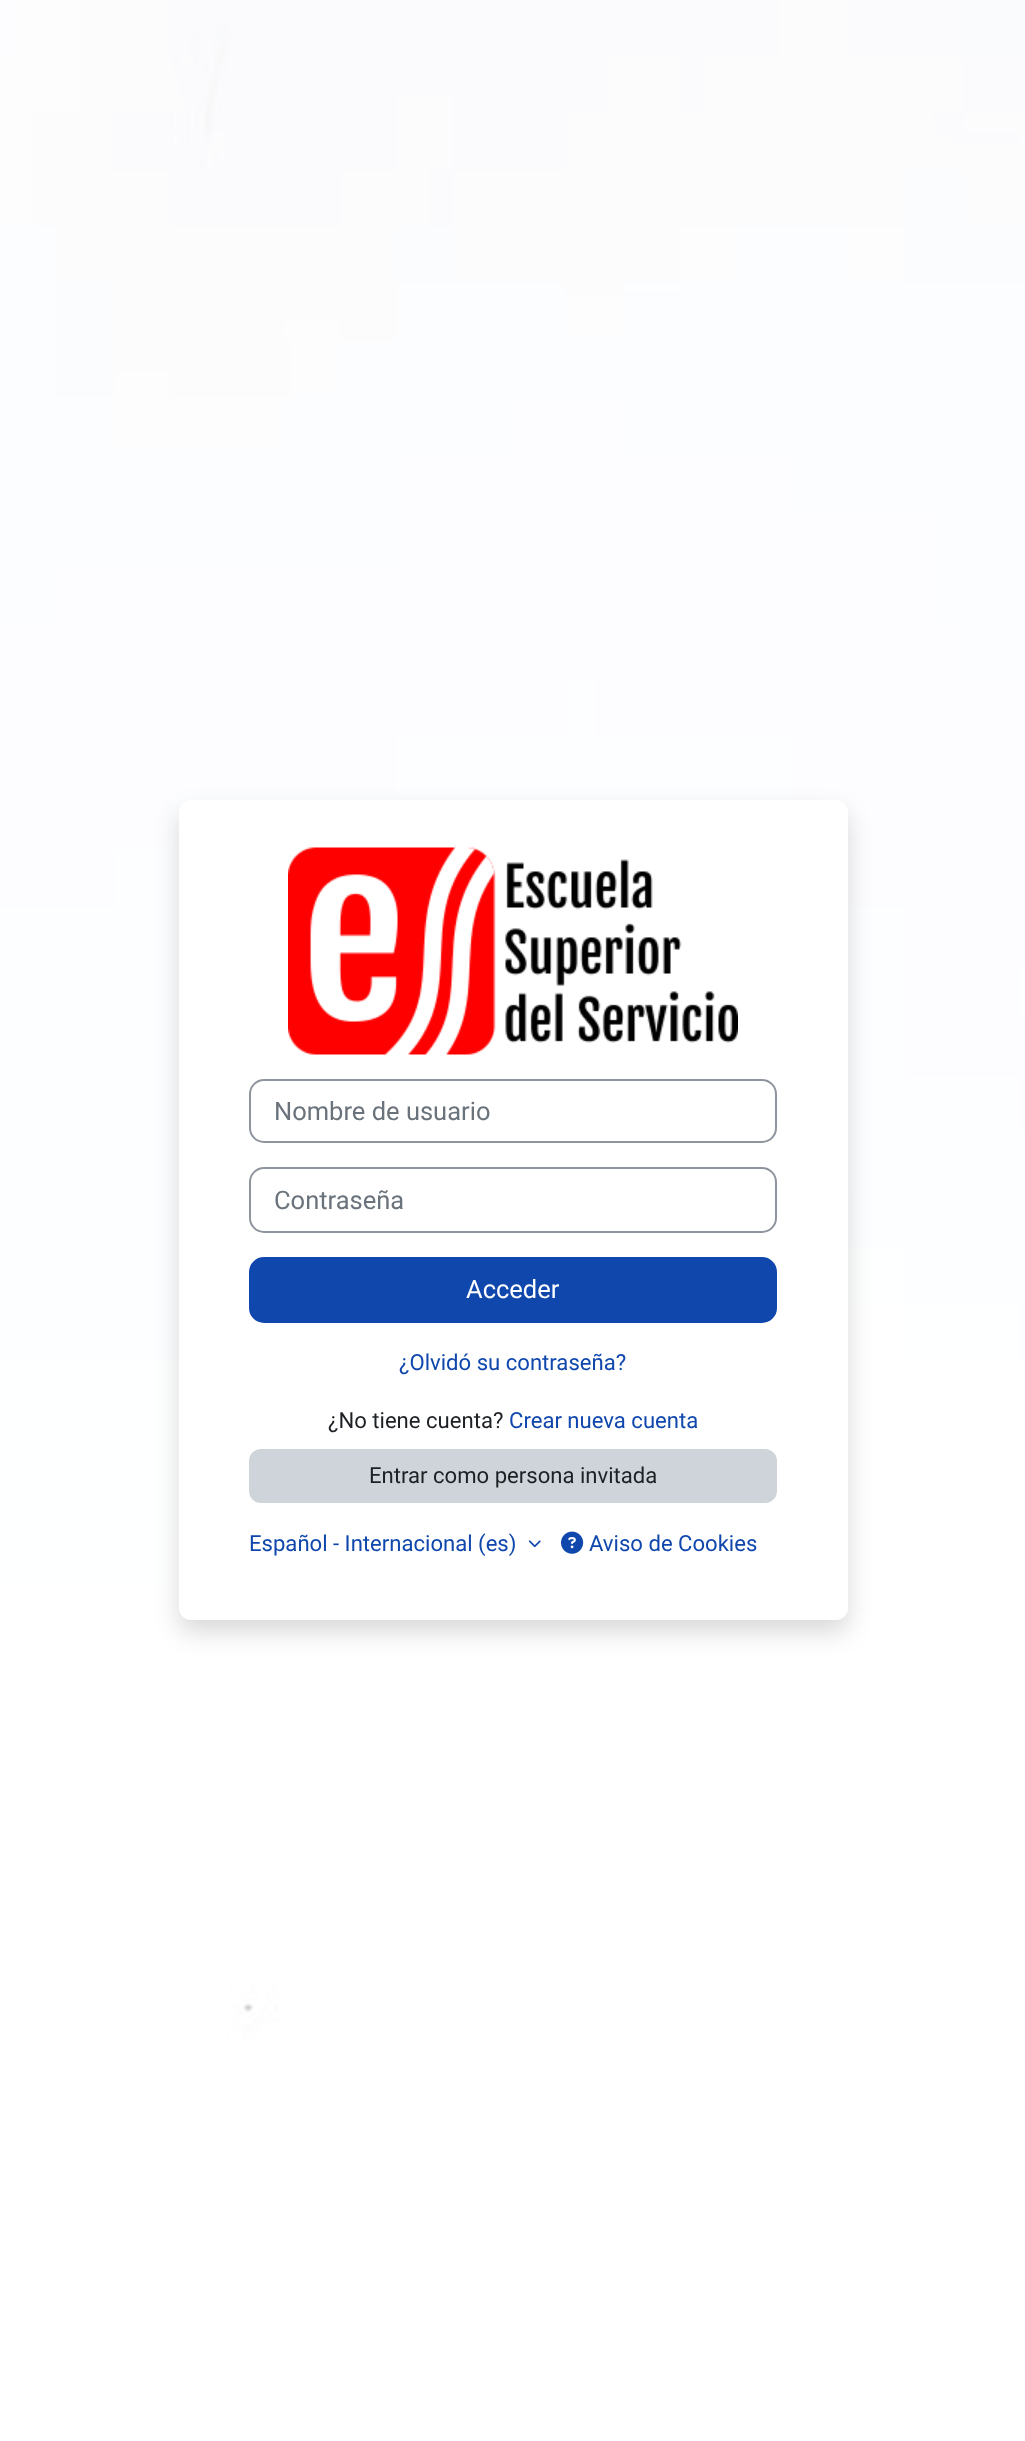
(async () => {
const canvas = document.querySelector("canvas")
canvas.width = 1025
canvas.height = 2441
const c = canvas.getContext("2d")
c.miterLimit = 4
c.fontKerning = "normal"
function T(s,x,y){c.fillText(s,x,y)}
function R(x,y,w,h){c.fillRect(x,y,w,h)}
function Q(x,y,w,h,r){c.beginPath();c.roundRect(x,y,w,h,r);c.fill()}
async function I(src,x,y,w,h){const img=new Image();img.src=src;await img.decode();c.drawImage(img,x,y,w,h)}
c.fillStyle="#fff"
R(0,0,1025,2441)
await I("1.png",0,0,1025,2441)
c.fillStyle="#00000026"
c.filter="blur(12px)"
c.beginPath()
c.roundRect(179,812,669,820,12)
c.fill()
c.filter="none"
c.fillStyle="#fff"
Q(179,800,669,820,12)
await I("2.png",288,847,450,208)
c.beginPath()
c.roundRect(250,1080,526,62,14)
c.strokeStyle="#8f959e"
c.lineWidth=2
c.stroke()
c.font="25.5px Roboto"
c.fillStyle="#6a737b"
T("Nombre de usuario",274,1120)
c.beginPath()
c.roundRect(250,1168,526,64,14)
c.stroke()
T("Contraseña",274,1209)
c.fillStyle="#0f47ad"
c.beginPath()
c.roundRect(250,1258,526,64,14)
c.fill()
c.strokeStyle="#0f47ad"
c.stroke()
c.fillStyle="#fff"
T("Acceder",466,1298)
c.font="22.1px Roboto"
c.fillStyle="#0f47ad"
T("¿Olvidó su contraseña?",399,1370)
c.fillStyle="#1d2125"
T("¿No tiene cuenta?",328,1428)
c.fillStyle="#0f47ad"
T("Crear nueva cuenta",509,1428)
c.fillStyle="#ced4da"
c.beginPath()
c.roundRect(250,1450,526,52,11)
c.fill()
c.strokeStyle="#ced4da"
c.stroke()
c.fillStyle="#1d2125"
T("Entrar como persona invitada",369,1483)
c.fillStyle="#0f47ad"
T("Español - Internacional (es)",249,1551)
await I("3.png",528,1540,13,8)
await I("4.png",561,1531,23,23)
T("Aviso de Cookies",589,1551)
})()
